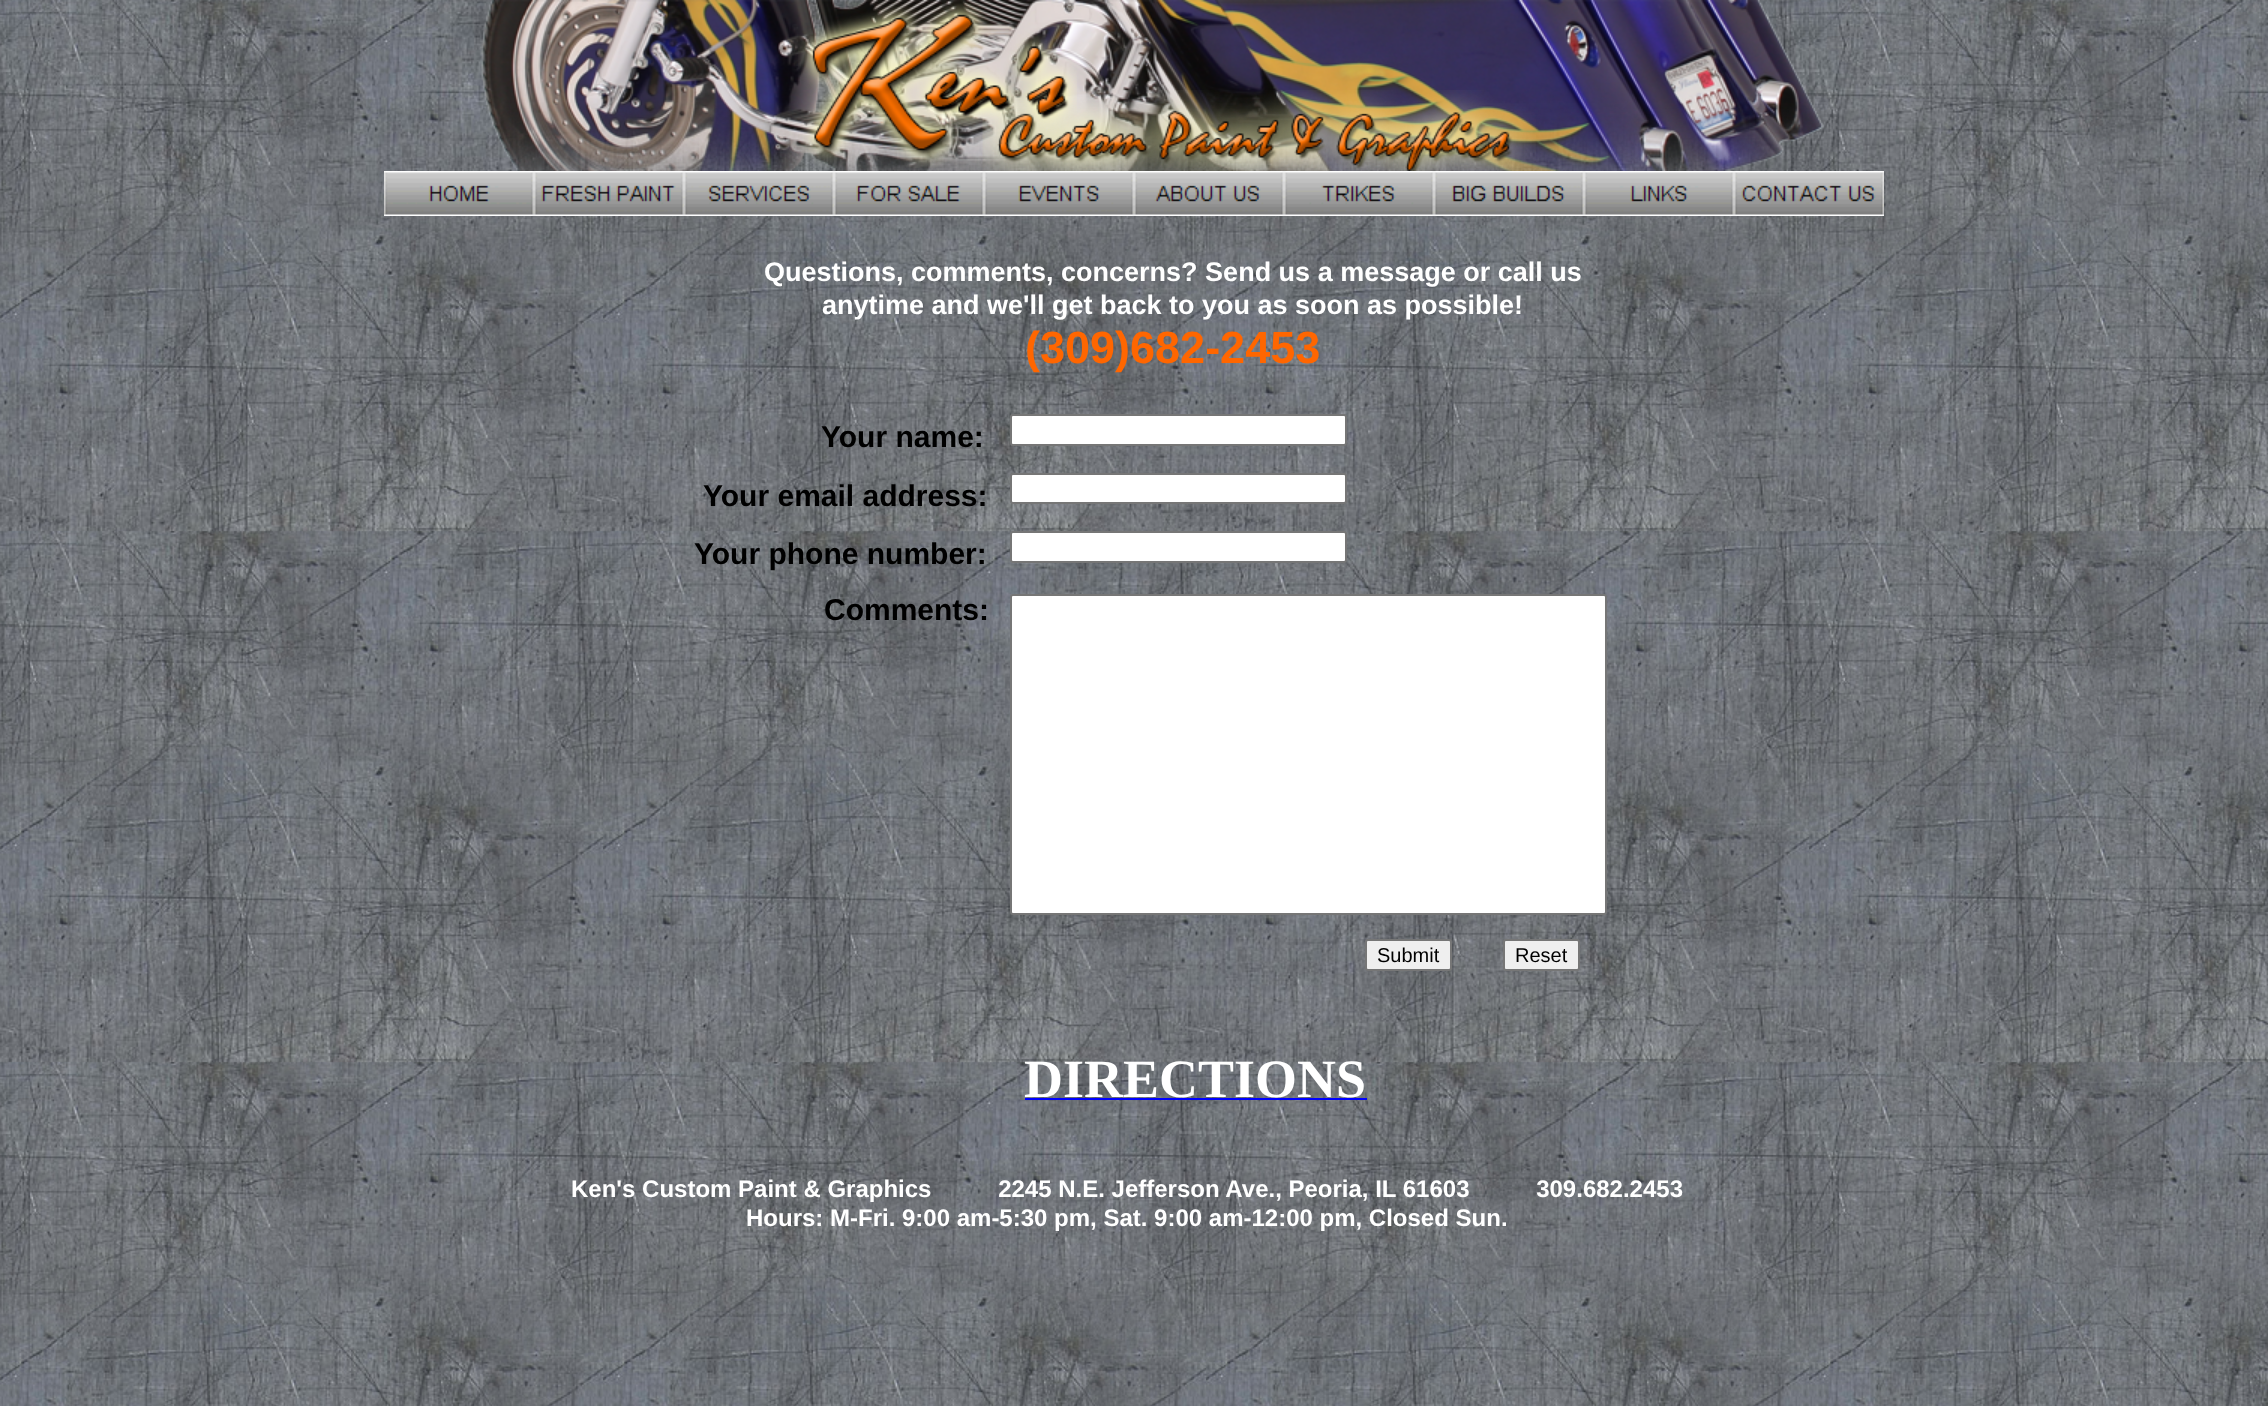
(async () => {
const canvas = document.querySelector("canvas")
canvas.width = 2268
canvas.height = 1406
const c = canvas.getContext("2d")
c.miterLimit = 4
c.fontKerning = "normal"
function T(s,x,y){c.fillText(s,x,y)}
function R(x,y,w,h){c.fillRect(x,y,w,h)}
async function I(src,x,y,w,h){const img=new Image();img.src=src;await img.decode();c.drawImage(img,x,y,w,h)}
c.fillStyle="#fff"
R(0,0,2268,1406)
await I("1.png",0,0,2268,1406)
await I("2.png",480,0,1345,171)
await I("4.png",982,90,554,81)
await I("3.png",798,0,279,168)
await I("5.png",384,171,150,45)
await I("6.png",534,171,150,45)
await I("7.png",684,171,150,45)
await I("8.png",834,171,150,45)
await I("9.png",984,171,150,45)
await I("10.png",1134,171,150,45)
await I("11.png",1284,171,150,45)
await I("12.png",1434,171,150,45)
await I("13.png",1584,171,150,45)
await I("14.png",1734,171,150,45)
c.font="bold 27px Liberation Sans"
T("Questions, comments, concerns? Send us a message or call us",764,281)
T("anytime and we'll get back to you as soon as possible!",822,314)
c.font="bold 45px Liberation Sans"
c.fillStyle="#f60"
T("(309)682-2453",1025,363)
c.font="bold 30px Liberation Sans"
c.fillStyle="#000"
T("Your name:",821,447)
c.fillStyle="#fff"
c.beginPath()
c.roundRect(1011,415,335,30,2)
c.fill()
c.strokeStyle="#767676"
c.lineWidth=2
c.stroke()
c.fillStyle="#000"
T("Your email address:",703,506)
c.fillStyle="#fff"
c.beginPath()
c.roundRect(1011,474,335,29,2)
c.fill()
c.stroke()
c.fillStyle="#000"
T("Your phone number:",694,564)
c.fillStyle="#fff"
c.beginPath()
c.roundRect(1011,532,335,30,2)
c.fill()
c.stroke()
c.fillStyle="#000"
T("Comments:",824,620)
c.fillStyle="#fff"
c.beginPath()
c.roundRect(1011,595,595,319,2)
c.fill()
c.stroke()
c.fillStyle="#efefef"
c.beginPath()
c.roundRect(1366,940,85,30,2)
c.fill()
c.stroke()
c.font="20px Liberation Sans"
c.fillStyle="#000"
T("Submit",1377,962)
c.fillStyle="#efefef"
c.beginPath()
c.roundRect(1504,940,75,30,2)
c.fill()
c.stroke()
c.fillStyle="#000"
T("Reset",1515,962)
c.font="bold 54px Liberation Serif"
c.fillStyle="#fff"
T("DIRECTIONS",1024,1097)
c.fillStyle="#00f"
R(1025,1098,342,2)
c.font="bold 24px Liberation Sans"
c.fillStyle="#fff"
T("Ken's Custom Paint & Graphics          2245 N.E. Jefferson Ave., Peoria, IL 61603          309.682.2453",571,1197)
T("Hours: M-Fri. 9:00 am-5:30 pm, Sat. 9:00 am-12:00 pm, Closed Sun.",746,1226)
})()
